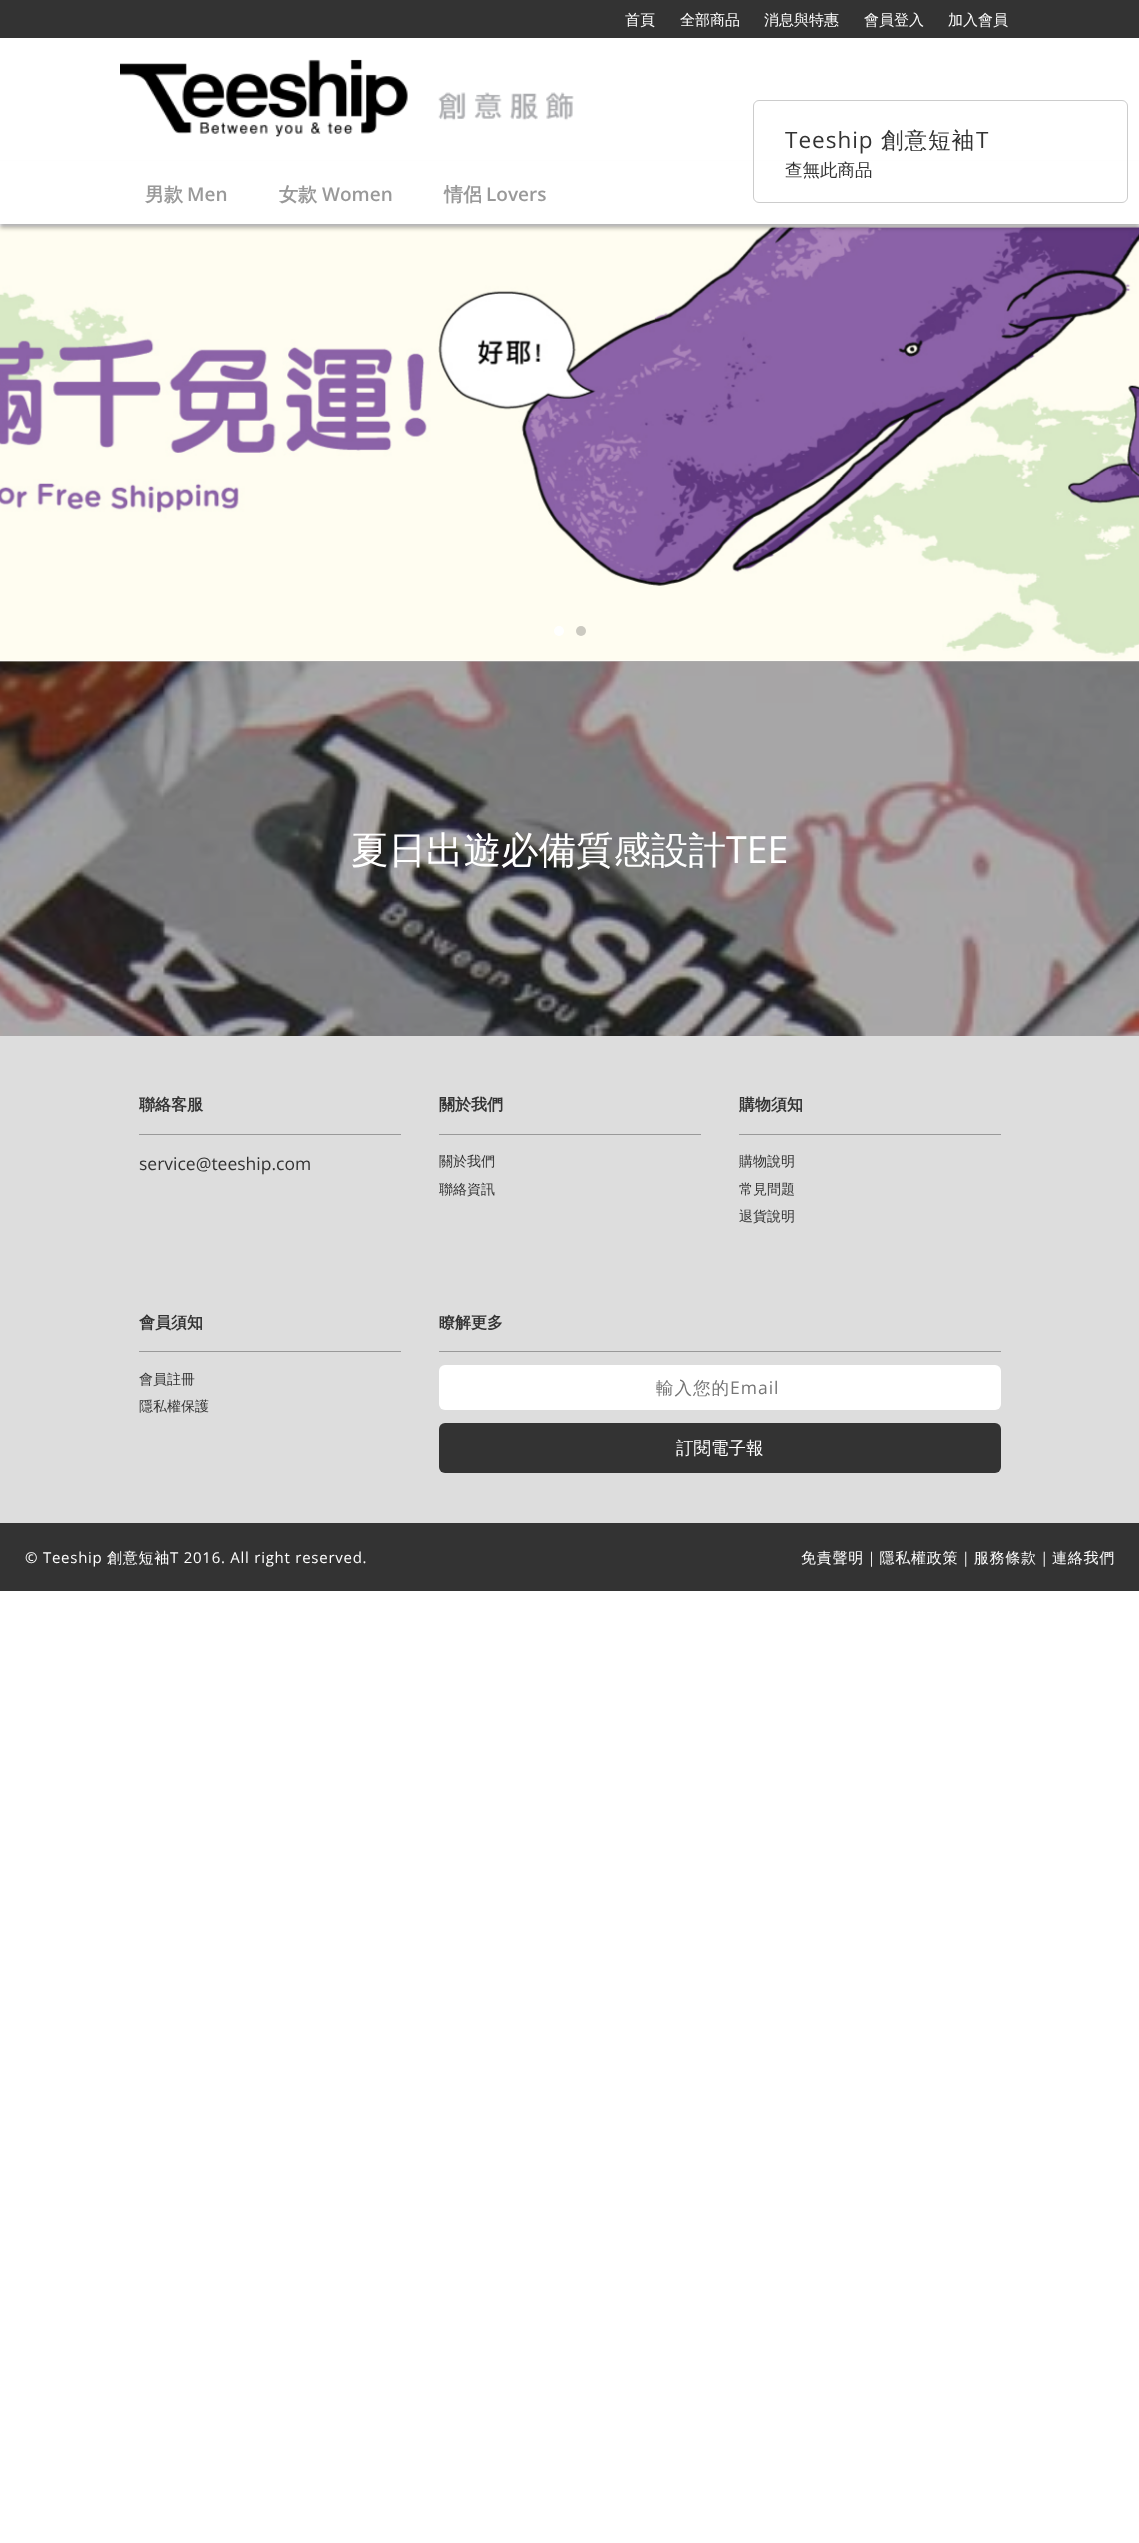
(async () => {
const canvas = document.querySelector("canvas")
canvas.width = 1139
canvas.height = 2543
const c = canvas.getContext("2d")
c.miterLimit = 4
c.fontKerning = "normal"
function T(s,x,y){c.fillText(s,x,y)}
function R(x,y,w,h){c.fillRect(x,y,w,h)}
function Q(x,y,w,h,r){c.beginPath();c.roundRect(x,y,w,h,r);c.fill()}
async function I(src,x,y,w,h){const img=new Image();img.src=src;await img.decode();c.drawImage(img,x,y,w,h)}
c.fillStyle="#fff"
R(0,0,1139,2543)
c.fillStyle="#333"
R(0,0,1139,38)
c.font="500 15px WenQuanYi Zen Hei"
c.fillStyle="#fff"
T("首頁",625,25)
T("全部商品",680,25)
T("消息與特惠",764,25)
T("會員登入",864,25)
T("加入會員",948,25)
await I("1.png",120,59,454,78)
await I("3.png",0,661,1139,375)
await I("2.png",0,225,1139,437)
c.fillStyle="#0000004d"
c.filter="blur(2px)"
c.beginPath()
c.rect(0,165,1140,63)
c.fill()
c.filter="none"
c.fillStyle="#fff"
R(0,161,1139,63)
c.font="bold 19px WenQuanYi Zen Hei"
c.fillStyle="#999"
T("男款",145,201)
c.font="600 19px Open Sans"
T("Men",187,201)
c.font="bold 19px WenQuanYi Zen Hei"
T("女款",279,201)
c.font="600 19px Open Sans"
T("Women",322,201)
c.font="bold 19px WenQuanYi Zen Hei"
T("情侶",444,201)
c.font="600 19px Open Sans"
T("Lovers",486,201)
c.beginPath()
c.roundRect(753.5,100.5,374,102,5.5)
c.strokeStyle="#ccc"
c.stroke()
c.letterSpacing="1px"
c.font="22.5px Open Sans"
c.fillStyle="#333"
T("Teeship",785,148)
c.font="500 22.5px WenQuanYi Zen Hei"
T("創意短袖",881,148)
c.font="22.5px Open Sans"
T("T",976,148)
c.letterSpacing="0px"
c.font="500 17.5px WenQuanYi Zen Hei"
T("查無此商品",785,176)
c.fillStyle="#fff"
c.beginPath()
c.arc(559,631,5,0,7)
c.fill()
c.fillStyle="#cccac1"
c.beginPath()
c.arc(581,631,5,0,7)
c.fill()
c.fillStyle="#0000004d"
R(0,661,1139,375)
c.font="500 37.5px WenQuanYi Zen Hei"
c.fillStyle="#fff"
T("夏日出遊必備質感設計",351,863)
c.font="37.5px Open Sans"
T("TEE",726,863)
c.fillStyle="#ddd"
R(0,1036,1139,487)
c.fillStyle="#999"
R(139,1134,262,1)
c.font="bold 16px WenQuanYi Zen Hei"
c.fillStyle="#333"
T("聯絡客服",139,1110)
c.font="17.5px Open Sans"
T("service@teeship.com",139,1170)
c.fillStyle="#999"
R(439,1134,262,1)
c.font="bold 16px WenQuanYi Zen Hei"
c.fillStyle="#333"
T("關於我們",439,1110)
c.font="500 14px WenQuanYi Zen Hei"
T("關於我們",439,1166)
T("聯絡資訊",439,1194)
c.fillStyle="#999"
R(739,1134,262,1)
c.font="bold 16px WenQuanYi Zen Hei"
c.fillStyle="#333"
T("購物須知",739,1110)
c.font="500 14px WenQuanYi Zen Hei"
T("購物說明",739,1166)
T("常見問題",739,1194)
T("退貨說明",739,1221)
c.fillStyle="#999"
R(139,1351,262,1)
c.font="bold 16px WenQuanYi Zen Hei"
c.fillStyle="#333"
T("會員須知",139,1328)
c.font="500 14px WenQuanYi Zen Hei"
T("會員註冊",139,1384)
T("隱私權保護",139,1411)
c.fillStyle="#999"
R(439,1351,562,1)
c.font="bold 16px WenQuanYi Zen Hei"
c.fillStyle="#333"
T("瞭解更多",439,1328)
c.fillStyle="#fff"
Q(439,1365,562,45,6)
c.letterSpacing="1px"
c.font="500 17.5px WenQuanYi Zen Hei"
c.fillStyle="#757575"
T("輸入您的",656,1394)
c.font="17.5px Open Sans"
T("Email",730,1394)
c.fillStyle="#333"
Q(439,1423,562,50,6)
c.letterSpacing="0px"
c.font="500 17.5px WenQuanYi Zen Hei"
c.fillStyle="#fff"
T("訂閱電子報",676,1454)
c.fillStyle="#333"
R(0,1523,1139,68)
c.letterSpacing="0.75px"
c.font="15px Open Sans"
c.fillStyle="#fff"
T("© Teeship",25,1563)
c.font="500 15px WenQuanYi Zen Hei"
T("創意短袖",107,1563)
c.font="15px Open Sans"
T("T 2016. All right reserved.",170,1563)
c.font="500 15px WenQuanYi Zen Hei"
T("免責聲明｜隱私權政策｜服務條款｜連絡我們",801,1563)
})()
